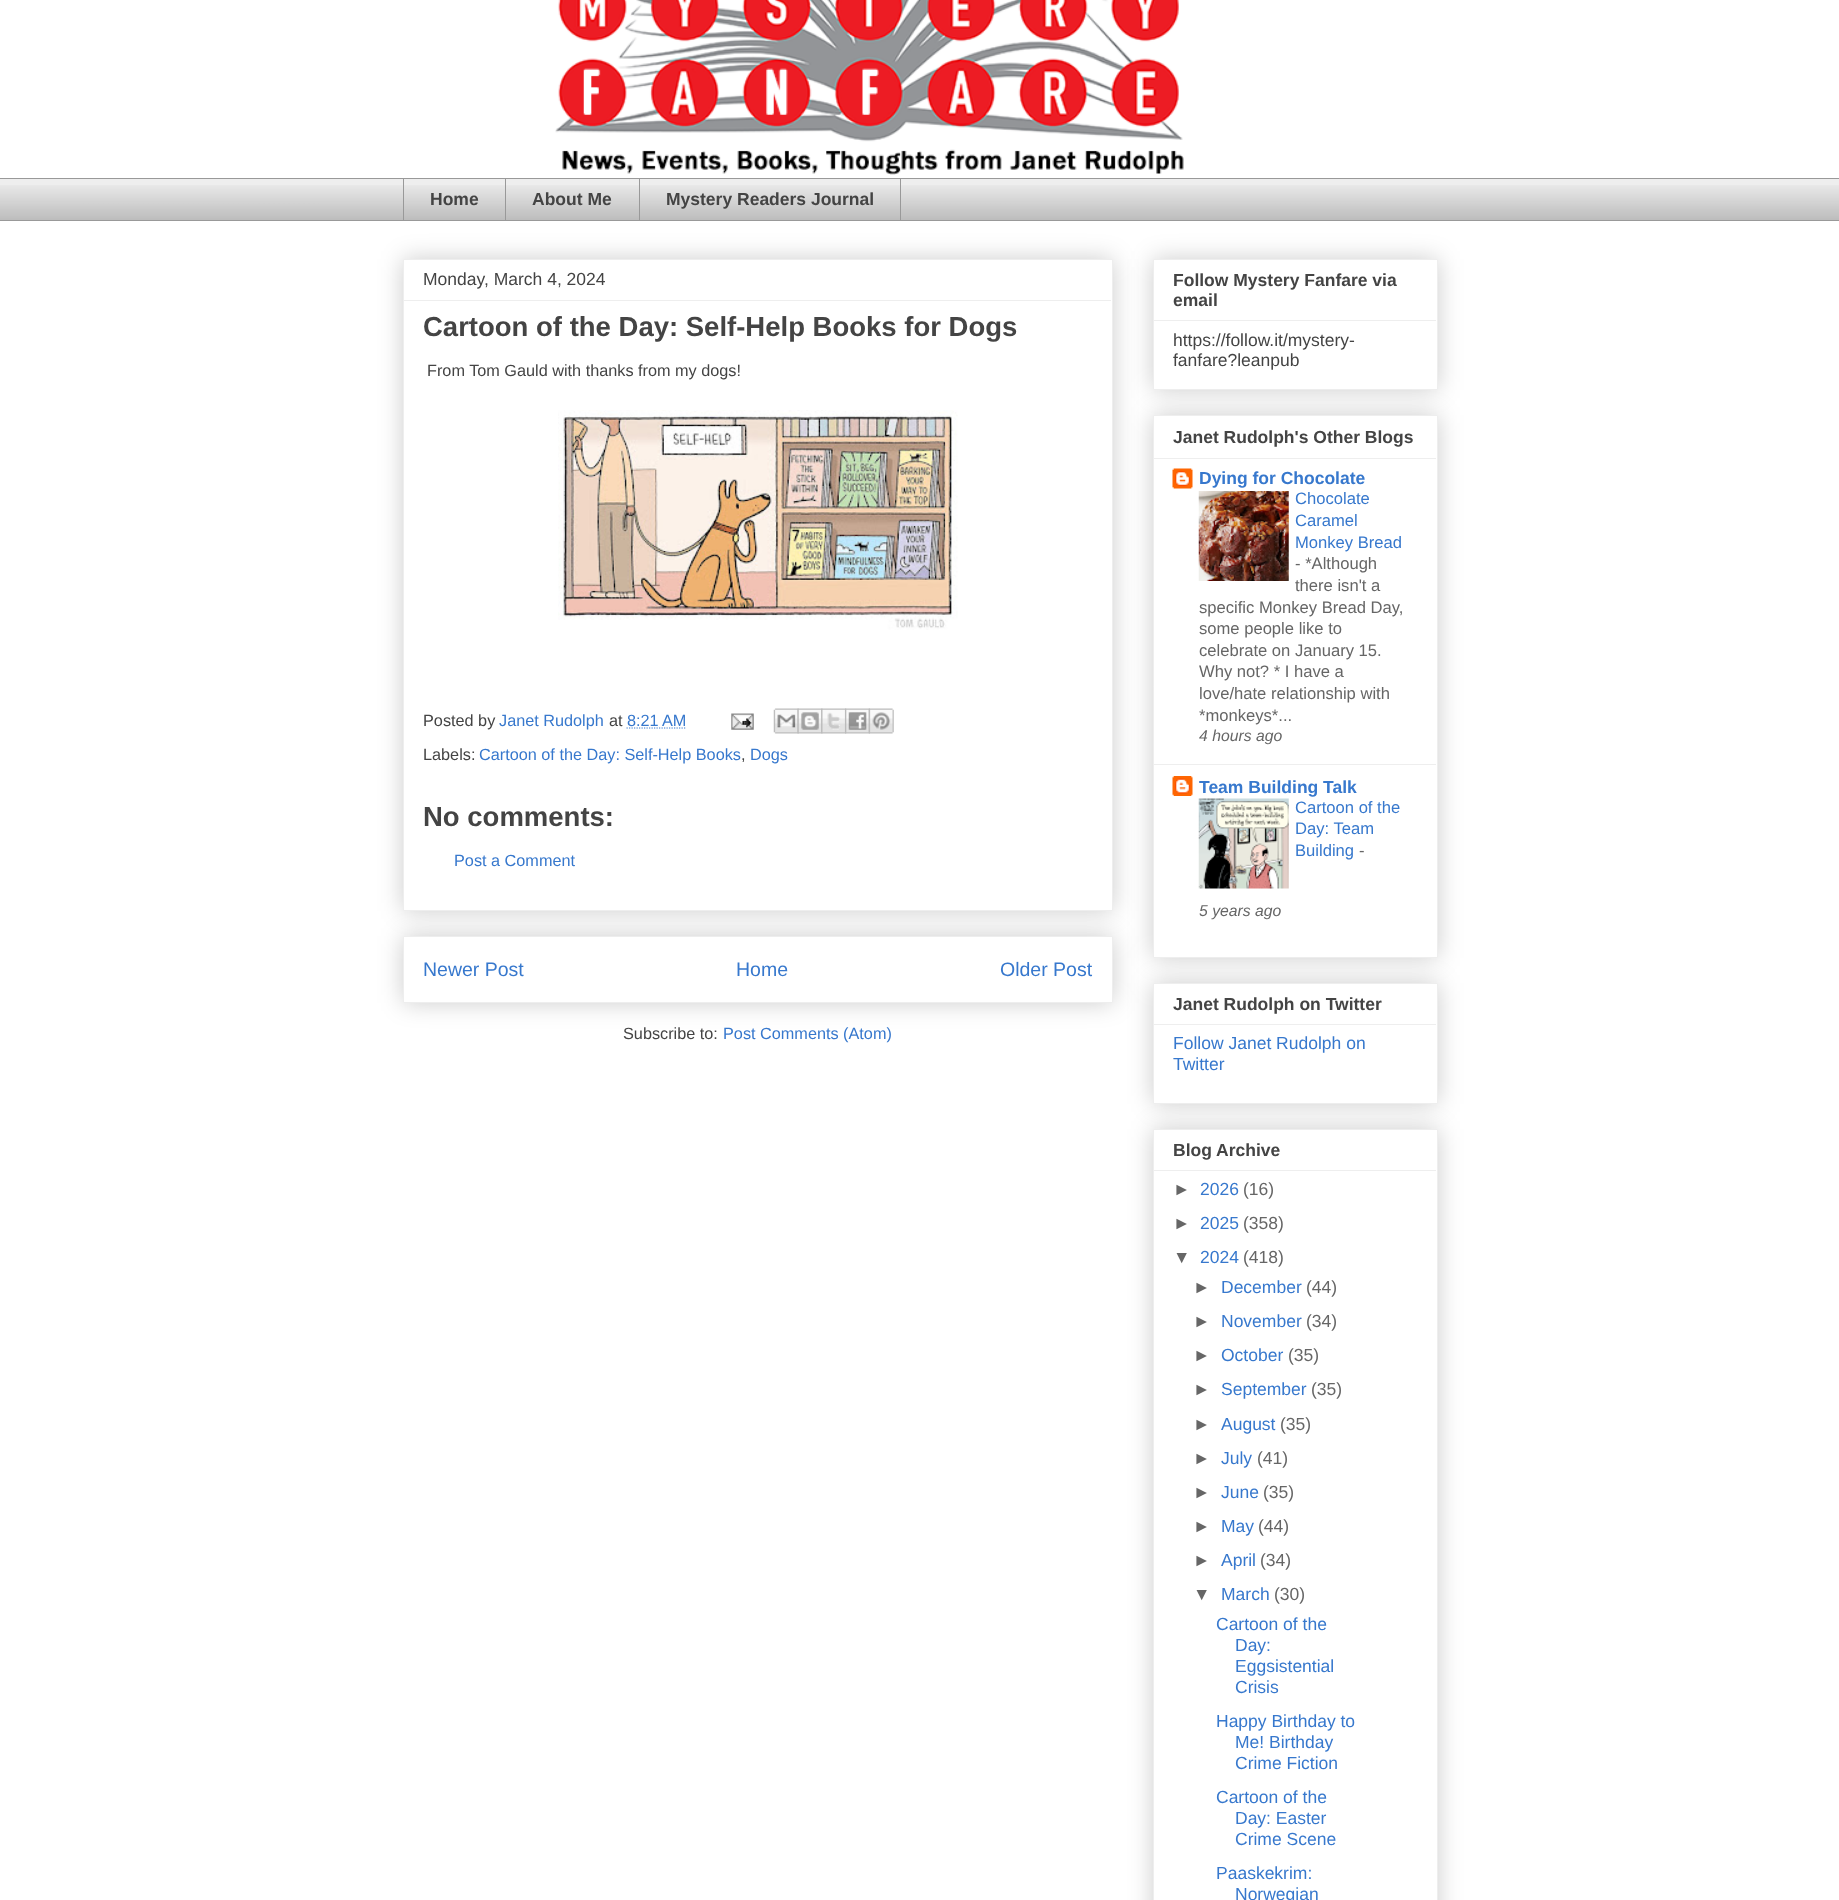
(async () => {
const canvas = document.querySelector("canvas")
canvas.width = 1839
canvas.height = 1900
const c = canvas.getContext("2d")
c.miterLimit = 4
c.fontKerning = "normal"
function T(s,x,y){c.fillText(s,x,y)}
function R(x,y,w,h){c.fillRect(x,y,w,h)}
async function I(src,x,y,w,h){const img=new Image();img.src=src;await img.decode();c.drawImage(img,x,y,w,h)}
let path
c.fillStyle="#fff"
R(0,0,1839,1900)
await I("1.png",555,0,629,175)
c.fillStyle="#eee"
R(0,179,1839,41)
await I("2.png",0,185,1839,35)
c.fillStyle="#999"
R(0,178,1839,1)
R(403,178,1,43)
c.font="bold 17.5px Liberation Sans"
c.fillStyle="#444"
T("Home",430,205)
c.fillStyle="#999"
R(505,178,1,43)
c.fillStyle="#444"
T("About Me",532,205)
c.strokeStyle="#999"
c.strokeRect(639.5,178.5,261,42)
T("Mystery Readers Journal",666,205)
c.fillStyle="#999"
R(0,220,1839,1)
c.fillStyle="#00000033"
c.filter="blur(12.5px)"
c.beginPath()
c.rect(403,936,710,67)
c.fill()
c.filter="none"
c.fillStyle="#fff"
c.beginPath()
c.rect(403.5,936.5,709,66)
c.fill()
c.strokeStyle="#eee"
c.stroke()
c.fillStyle="#00000033"
c.filter="blur(12.5px)"
c.beginPath()
c.rect(403,259,710,652)
c.fill()
c.filter="none"
c.fillStyle="#fff"
c.beginPath()
c.rect(403.5,259.5,709,651)
c.fill()
c.stroke()
c.font="17.5px Liberation Sans"
c.fillStyle="#444"
T("Monday, March 4, 2024",423,285)
c.fillStyle="#eee"
R(404,300,707,1)
c.font="bold 27.5px Liberation Sans"
c.fillStyle="#444"
T("Cartoon of the Day: Self-Help Books for Dogs",423,336)
c.font="16.25px Liberation Sans"
T("From Tom Gauld with thanks from my dogs!",427,376)
await I("3.png",558,410,400,220)
T("Posted by",423,726)
c.fillStyle="#3778cd"
T("Janet Rudolph",499,726)
c.fillStyle="#444"
T("at",609,726)
c.fillStyle="#3778cd"
T("8:21 AM",627,726)
path = new Path2D("M626.5 728h59.5")
c.strokeStyle="#3778cd"
c.lineWidth=1.2
c.setLineDash([1.25,1.25])
c.stroke(path)
await I("4.png",731,713,23,17)
await I("5.png",773,708,26,26)
await I("6.png",797,708,26,26)
await I("7.png",821,708,26,26)
await I("8.png",845,708,25,26)
await I("9.png",868,708,26,26)
c.fillStyle="#444"
T("Labels:",423,760)
c.fillStyle="#3778cd"
T("Cartoon of the Day: Self-Help Books",479,760)
c.fillStyle="#444"
T(",",741,760)
c.fillStyle="#3778cd"
T("Dogs",750,760)
c.font="bold 27.5px Liberation Sans"
c.fillStyle="#444"
T("No comments:",423,826)
c.font="16.25px Liberation Sans"
c.fillStyle="#3778cd"
T("Post a Comment",454,866)
c.font="19.5px Liberation Sans"
T("Newer Post",423,976)
T("Home",736,976)
T("Older Post",1000,976)
c.font="16.25px Liberation Sans"
c.fillStyle="#444"
T("Subscribe to:",623,1039)
c.fillStyle="#3778cd"
T("Post Comments (Atom)",723,1039)
c.fillStyle="#00000033"
c.filter="blur(12.5px)"
c.beginPath()
c.rect(1153,259,285,131)
c.fill()
c.filter="none"
c.fillStyle="#fff"
c.beginPath()
c.rect(1153.5,259.5,284,130)
c.fill()
c.strokeStyle="#eee"
c.lineWidth=1
c.setLineDash([])
c.stroke()
c.font="bold 17.5px Liberation Sans"
c.fillStyle="#444"
T("Follow Mystery Fanfare via",1173,286)
T("email",1173,306)
c.fillStyle="#eee"
R(1154,320,282,1)
c.font="17.5px Liberation Sans"
c.fillStyle="#444"
T("https://follow.it/mystery-",1173,346)
T("fanfare?leanpub",1173,366)
c.fillStyle="#00000033"
c.filter="blur(12.5px)"
c.beginPath()
c.rect(1153,415,285,543)
c.fill()
c.filter="none"
c.fillStyle="#fff"
c.beginPath()
c.rect(1153.5,415.5,284,542)
c.fill()
c.stroke()
c.font="bold 17.5px Liberation Sans"
c.fillStyle="#444"
T("Janet Rudolph's Other Blogs",1173,443)
c.fillStyle="#eee"
R(1154,458,282,1)
await I("10.png",1172,468,21,21)
c.fillStyle="#3778cd"
T("Dying for Chocolate",1199,484)
await I("11.png",1198,491,91,90)
c.font="16.6px Liberation Sans"
T("Chocolate",1295,504)
T("Caramel",1295,526)
T("Monkey Bread",1295,548)
c.fillStyle="#666"
T("- *Although",1295,569)
T("there isn't a",1295,591)
T("specific Monkey Bread Day,",1199,613)
T("some people like to",1199,634)
T("celebrate on January 15.",1199,656)
T("Why not? * I have a",1199,677)
T("love/hate relationship with",1199,699)
T("*monkeys*...",1199,721)
c.font="italic 15.75px Liberation Sans"
T("4 hours ago",1199,741)
c.fillStyle="#eee"
R(1154,764,282,1)
await I("12.png",1172,776,21,20)
c.font="bold 17.5px Liberation Sans"
c.fillStyle="#3778cd"
T("Team Building Talk",1199,793)
await I("13.png",1198,798,91,91)
c.font="16.6px Liberation Sans"
T("Cartoon of the",1295,813)
T("Day: Team",1295,834)
T("Building",1295,856)
c.fillStyle="#666"
T("-",1359,856)
c.font="italic 15.75px Liberation Sans"
T("5 years ago",1199,916)
c.fillStyle="#00000033"
c.filter="blur(12.5px)"
c.beginPath()
c.rect(1153,983,285,121)
c.fill()
c.filter="none"
c.fillStyle="#fff"
c.beginPath()
c.rect(1153.5,983.5,284,120)
c.fill()
c.stroke()
c.font="bold 17.5px Liberation Sans"
c.fillStyle="#444"
T("Janet Rudolph on Twitter",1173,1010)
c.fillStyle="#eee"
R(1154,1024,282,1)
c.font="17.5px Liberation Sans"
c.fillStyle="#3778cd"
T("Follow Janet Rudolph on",1173,1049)
T("Twitter",1173,1070)
c.fillStyle="#00000033"
c.filter="blur(12.5px)"
c.beginPath()
c.rect(1153,1129,285,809)
c.fill()
c.filter="none"
c.fillStyle="#fff"
c.beginPath()
c.rect(1153.5,1129.5,284,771)
c.fill()
c.stroke()
c.font="bold 17.5px Liberation Sans"
c.fillStyle="#444"
T("Blog Archive",1173,1156)
c.fillStyle="#eee"
R(1154,1170,282,1)
c.font="17.5px Liberation Sans"
c.fillStyle="#666"
T("►",1173,1195)
c.fillStyle="#3778cd"
T("2026",1200,1195)
c.fillStyle="#666"
T("(16)",1243,1195)
T("►",1173,1229)
c.fillStyle="#3778cd"
T("2025",1200,1229)
c.fillStyle="#666"
T("(358)",1243,1229)
T("▼",1173,1263)
c.fillStyle="#3778cd"
T("2024",1200,1263)
c.fillStyle="#666"
T("(418)",1243,1263)
T("►",1193,1293)
c.fillStyle="#3778cd"
T("December",1221,1293)
c.fillStyle="#666"
T("(44)",1306,1293)
T("►",1193,1327)
c.fillStyle="#3778cd"
T("November",1221,1327)
c.fillStyle="#666"
T("(34)",1306,1327)
T("►",1193,1361)
c.fillStyle="#3778cd"
T("October",1221,1361)
c.fillStyle="#666"
T("(35)",1288,1361)
T("►",1193,1395)
c.fillStyle="#3778cd"
T("September",1221,1395)
c.fillStyle="#666"
T("(35)",1311,1395)
T("►",1193,1430)
c.fillStyle="#3778cd"
T("August",1221,1430)
c.fillStyle="#666"
T("(35)",1280,1430)
T("►",1193,1464)
c.fillStyle="#3778cd"
T("July",1221,1464)
c.fillStyle="#666"
T("(41)",1257,1464)
T("►",1193,1498)
c.fillStyle="#3778cd"
T("June",1221,1498)
c.fillStyle="#666"
T("(35)",1263,1498)
T("►",1193,1532)
c.fillStyle="#3778cd"
T("May",1221,1532)
c.fillStyle="#666"
T("(44)",1258,1532)
T("►",1193,1566)
c.fillStyle="#3778cd"
T("April",1221,1566)
c.fillStyle="#666"
T("(34)",1260,1566)
T("▼",1193,1600)
c.fillStyle="#3778cd"
T("March",1221,1600)
c.fillStyle="#666"
T("(30)",1274,1600)
c.fillStyle="#3778cd"
T("Cartoon of the",1216,1630)
T("Day:",1235,1651)
T("Eggsistential",1235,1672)
T("Crisis",1235,1693)
T("Happy Birthday to",1216,1727)
T("Me! Birthday",1235,1748)
T("Crime Fiction",1235,1769)
T("Cartoon of the",1216,1803)
T("Day: Easter",1235,1824)
T("Crime Scene",1235,1845)
T("Paaskekrim:",1216,1879)
T("Norwegian",1235,1900)
})()
